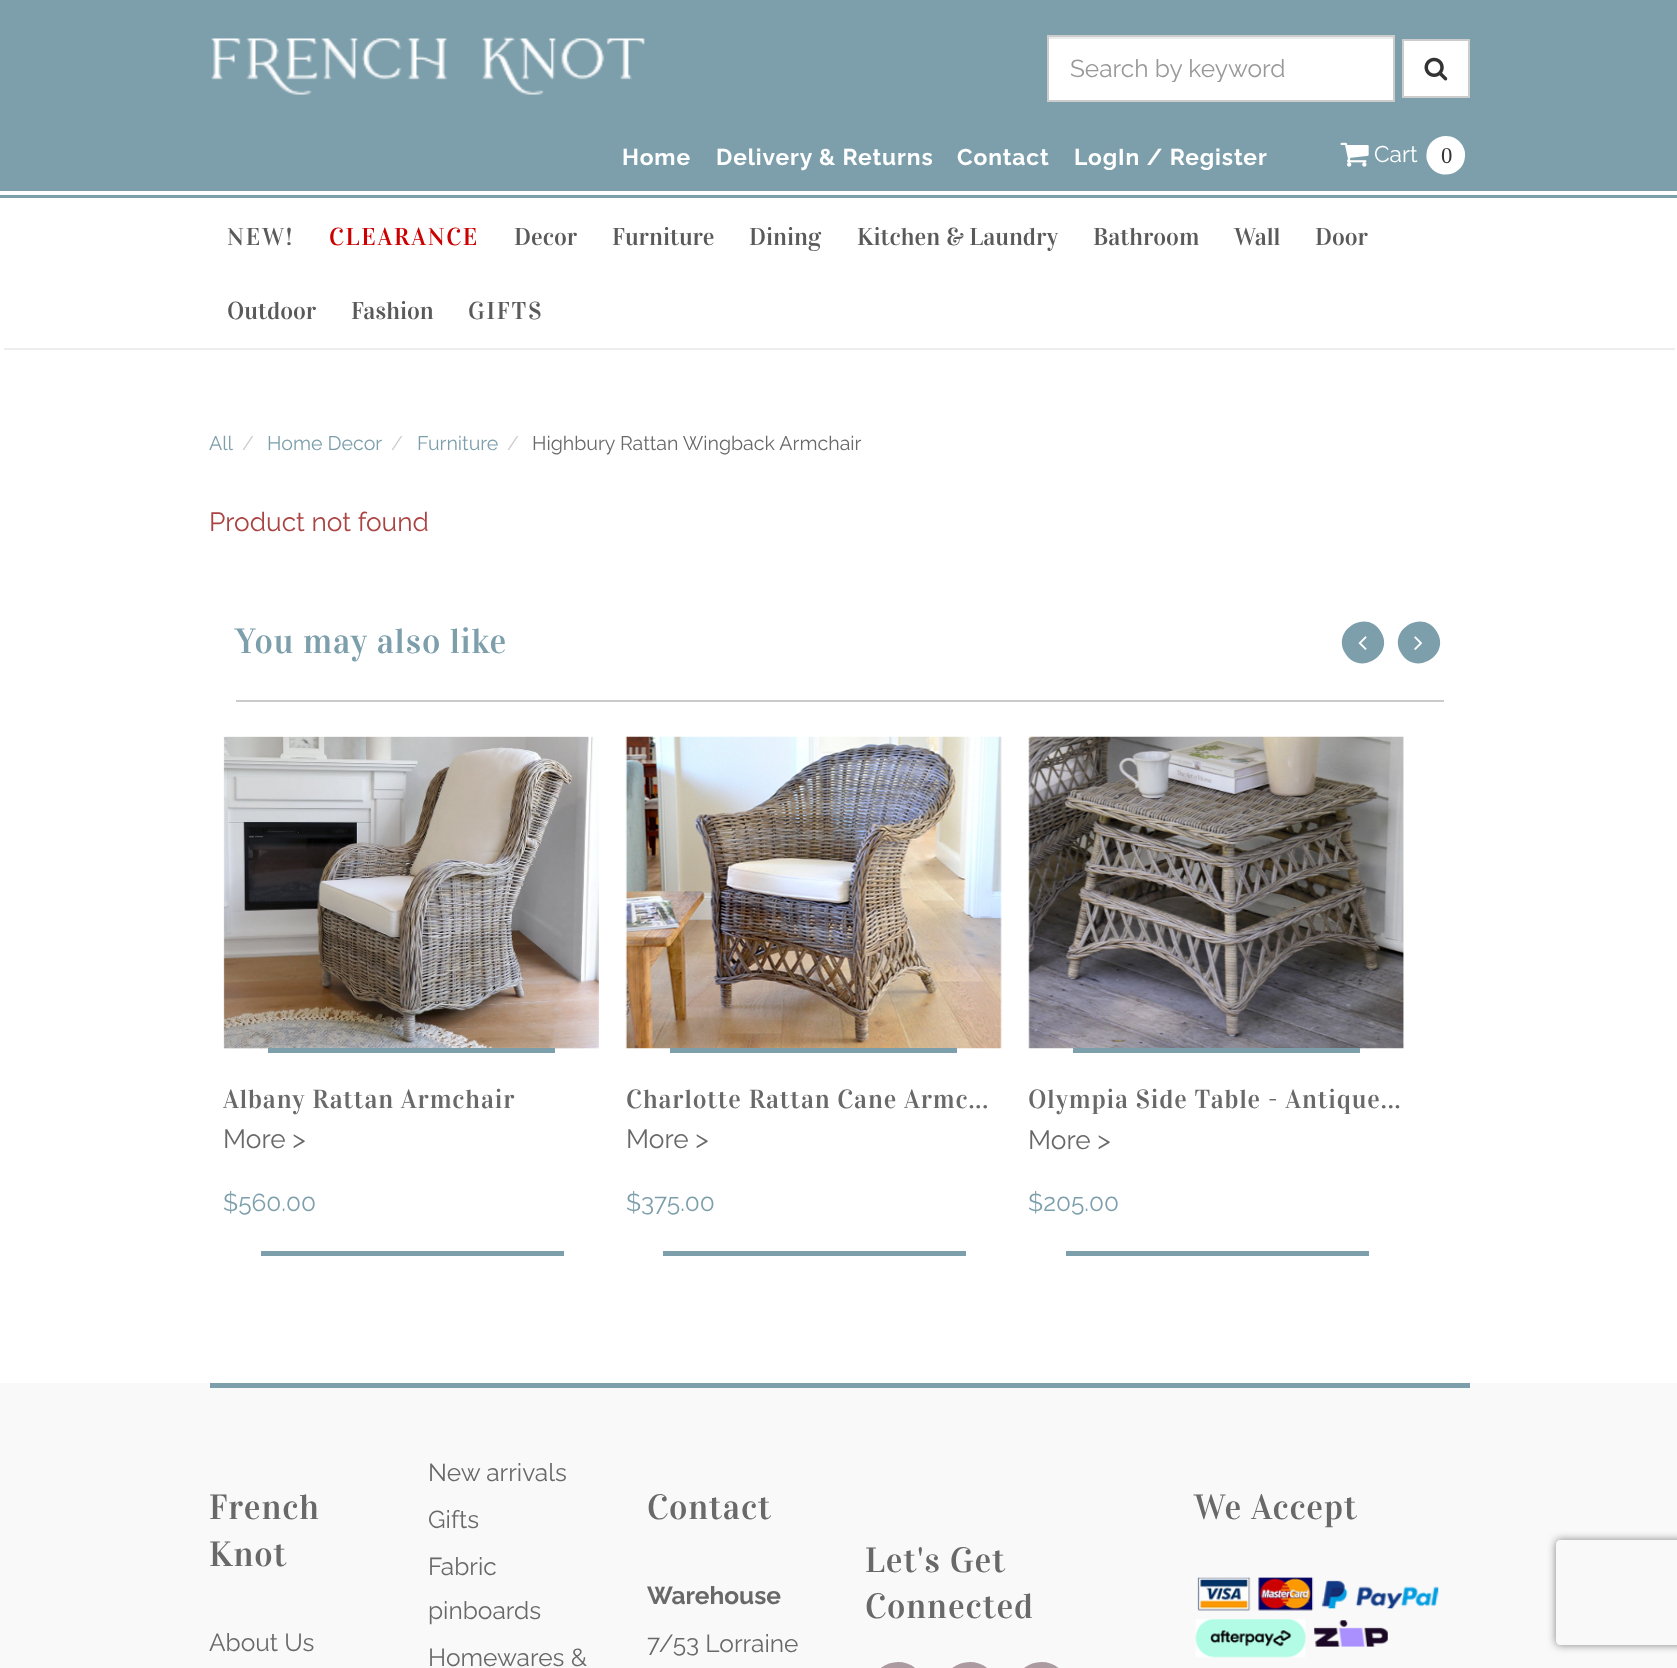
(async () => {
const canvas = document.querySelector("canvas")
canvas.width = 1677
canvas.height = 1668
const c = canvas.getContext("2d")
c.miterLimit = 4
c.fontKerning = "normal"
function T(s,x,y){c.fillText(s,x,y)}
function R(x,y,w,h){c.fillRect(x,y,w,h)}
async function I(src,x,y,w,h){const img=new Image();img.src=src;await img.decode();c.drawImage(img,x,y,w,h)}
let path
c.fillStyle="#fff"
R(0,0,1677,1668)
c.fillStyle="#7d9fab"
R(0,0,1677,198)
c.fillStyle="#fff"
R(0,191,1677,4)
await I("1.png",211,36,435,59)
R(1049,39,344,61)
c.fillStyle="#ececec"
R(1048,37,345,2)
c.strokeStyle="#ccc"
c.lineWidth=2
c.strokeRect(1048,36,346,65)
c.save()
c.beginPath()
c.rect(1069,54,303,28)
c.clip()
c.font="24.5px Raleway"
c.fillStyle="#999"
T("Search by keyword",1070,77)
c.restore()
c.fillStyle="#fff"
c.beginPath()
c.rect(1403,40,66,57)
c.fill()
c.stroke()
await I("2.png",1424,57,24,24)
c.letterSpacing="0.9px"
c.font="bold 22.75px Raleway"
T("Home",622,165)
T("Delivery & Returns",716,165)
T("Contact",957,165)
T("LogIn / Register",1074,165)
await I("3.png",1340,142,29,25)
c.letterSpacing="0px"
c.font="22.75px Raleway"
T("Cart",1374,162)
path = new Path2D("M1462.5 145.5c2 3.5 3 7 2.5 11c-1 19-26.5 25-36 8.5c-2-3.5-3-7-2.5-11c1-19 26.5-25 36-8.5z")
c.fill(path)
c.font="22.75px Liberation Serif"
c.fillStyle="#333"
T("0",1441,163)
c.fillStyle="#eceded"
R(4,348,1671,2)
c.letterSpacing="1.75px"
c.font="24.5px Vidaloka"
c.fillStyle="#5a5a5a"
T("NEW!",227,245)
c.fillStyle="#c00"
T("CLEARANCE",329,245)
c.letterSpacing="0px"
c.fillStyle="#5a5a5a"
T("Decor",514,245)
T("Furniture",612,245)
T("Dining",749,245)
T("Kitchen & Laundry",857,245)
T("Bathroom",1093,245)
T("Wall",1234,245)
T("Door",1315,245)
T("Outdoor",227,319)
T("Fashion",351,319)
c.letterSpacing="1.75px"
T("GIFTS",468,319)
c.letterSpacing="0px"
c.font="19.6px Raleway"
c.fillStyle="#7d9fab"
T("All",209,450)
c.fillStyle="#ccc"
T("/",242,450)
c.fillStyle="#7d9fab"
T("Home Decor",267,450)
c.fillStyle="#ccc"
T("/",391,450)
c.fillStyle="#7d9fab"
T("Furniture",417,450)
c.fillStyle="#ccc"
T("/",507,450)
c.fillStyle="#696969"
T("Highbury Rattan Wingback Armchair",532,450)
c.font="26.25px Raleway"
c.fillStyle="#a94442"
T("Product not found",209,531)
c.letterSpacing="0.9px"
c.font="35px Vidaloka"
c.fillStyle="#7d9fab"
T("You may also like",235,653)
path = new Path2D("M1381 632c14 23-22 45-36 21c-14-24 23-45 36-21z")
c.fill(path)
await I("4.png",1358,636,9,14)
path = new Path2D("M1437 632c14 23-22 45-36 21c-14-24 23-45 36-21z")
c.fill(path)
await I("5.png",1414,636,9,14)
c.fillStyle="#cacaca"
R(236,700,1208,2)
await I("6.png",223,736,376,313)
c.fillStyle="#7d9fab"
R(268,1048,287,5)
c.font="26.25px Vidaloka"
c.fillStyle="#696969"
T("Albany Rattan Armchair",223,1108)
c.letterSpacing="0px"
c.font="26.25px Raleway"
T("More >",223,1148)
c.font="24.5px Raleway"
c.fillStyle="#7d9fab"
T("$560.00",223,1211)
R(261,1251,303,5)
await I("7.png",625,736,377,313)
R(670,1048,287,5)
c.letterSpacing="0.9px"
c.font="26.25px Vidaloka"
c.fillStyle="#696969"
T("Charlotte Rattan Cane Armc...",626,1108)
c.letterSpacing="0px"
c.font="26.25px Raleway"
T("More >",626,1148)
c.font="24.5px Raleway"
c.fillStyle="#7d9fab"
T("$375.00",626,1211)
R(663,1251,303,5)
await I("8.png",1028,736,376,313)
R(1073,1048,287,5)
c.letterSpacing="0.9px"
c.font="26.25px Vidaloka"
c.fillStyle="#696969"
T("Olympia Side Table - Antique...",1028,1108)
c.letterSpacing="0px"
c.font="26.25px Raleway"
T("More >",1028,1149)
c.font="24.5px Raleway"
c.fillStyle="#7d9fab"
T("$205.00",1028,1211)
R(1066,1251,303,5)
c.fillStyle="#f9f9f9"
R(0,1383,1677,285)
c.fillStyle="#7d9fab"
R(210,1383,1260,5)
c.letterSpacing="0.9px"
c.font="35px Vidaloka"
c.fillStyle="#696969"
T("French",209,1519)
T("Knot",209,1566)
c.letterSpacing="0px"
c.font="24.5px Raleway"
T("About Us",209,1651)
T("New arrivals",428,1481)
T("Gifts",428,1528)
T("Fabric",428,1575)
T("pinboards",428,1619)
T("Homewares &",428,1666)
c.letterSpacing="0.9px"
c.font="35px Vidaloka"
T("Contact",647,1519)
c.letterSpacing="0px"
c.font="bold 24.5px Raleway"
T("Warehouse",647,1604)
c.font="24.5px Raleway"
T("7/53 Lorraine",647,1652)
c.letterSpacing="0.9px"
c.font="35px Vidaloka"
T("Let's Get",865,1572)
T("Connected",865,1618)
c.fillStyle="#ab9aa0"
path = new Path2D("M922 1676c3 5 4 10 4 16c-2 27-39 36-52 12c-3-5-5-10-4-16c2-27 38-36 52-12z")
c.fill(path)
path = new Path2D("M994 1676c3 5 4 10 3 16c-1 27-38 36-52 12c-3-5-4-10-3-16c1-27 38-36 52-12z")
c.fill(path)
path = new Path2D("M1065 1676c3 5 5 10 4 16c-2 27-38 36-52 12c-3-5-4-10-4-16c2-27 39-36 52-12z")
c.fill(path)
c.fillStyle="#696969"
T("We Accept",1194,1519)
await I("9.png",1195,1577,244,81)
c.save()
path = new Path2D("M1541 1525h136v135h-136zm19 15h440c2 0 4 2 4 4v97c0 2-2 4-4 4h-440c-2 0-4-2-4-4v-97c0-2 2-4 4-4z")
c.clip(path,"evenodd")
c.fillStyle="#808080"
c.filter="blur(4.5px)"
c.beginPath()
c.roundRect(1556,1540,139,105,4)
c.fill()
c.filter="none"
c.restore()
})()
